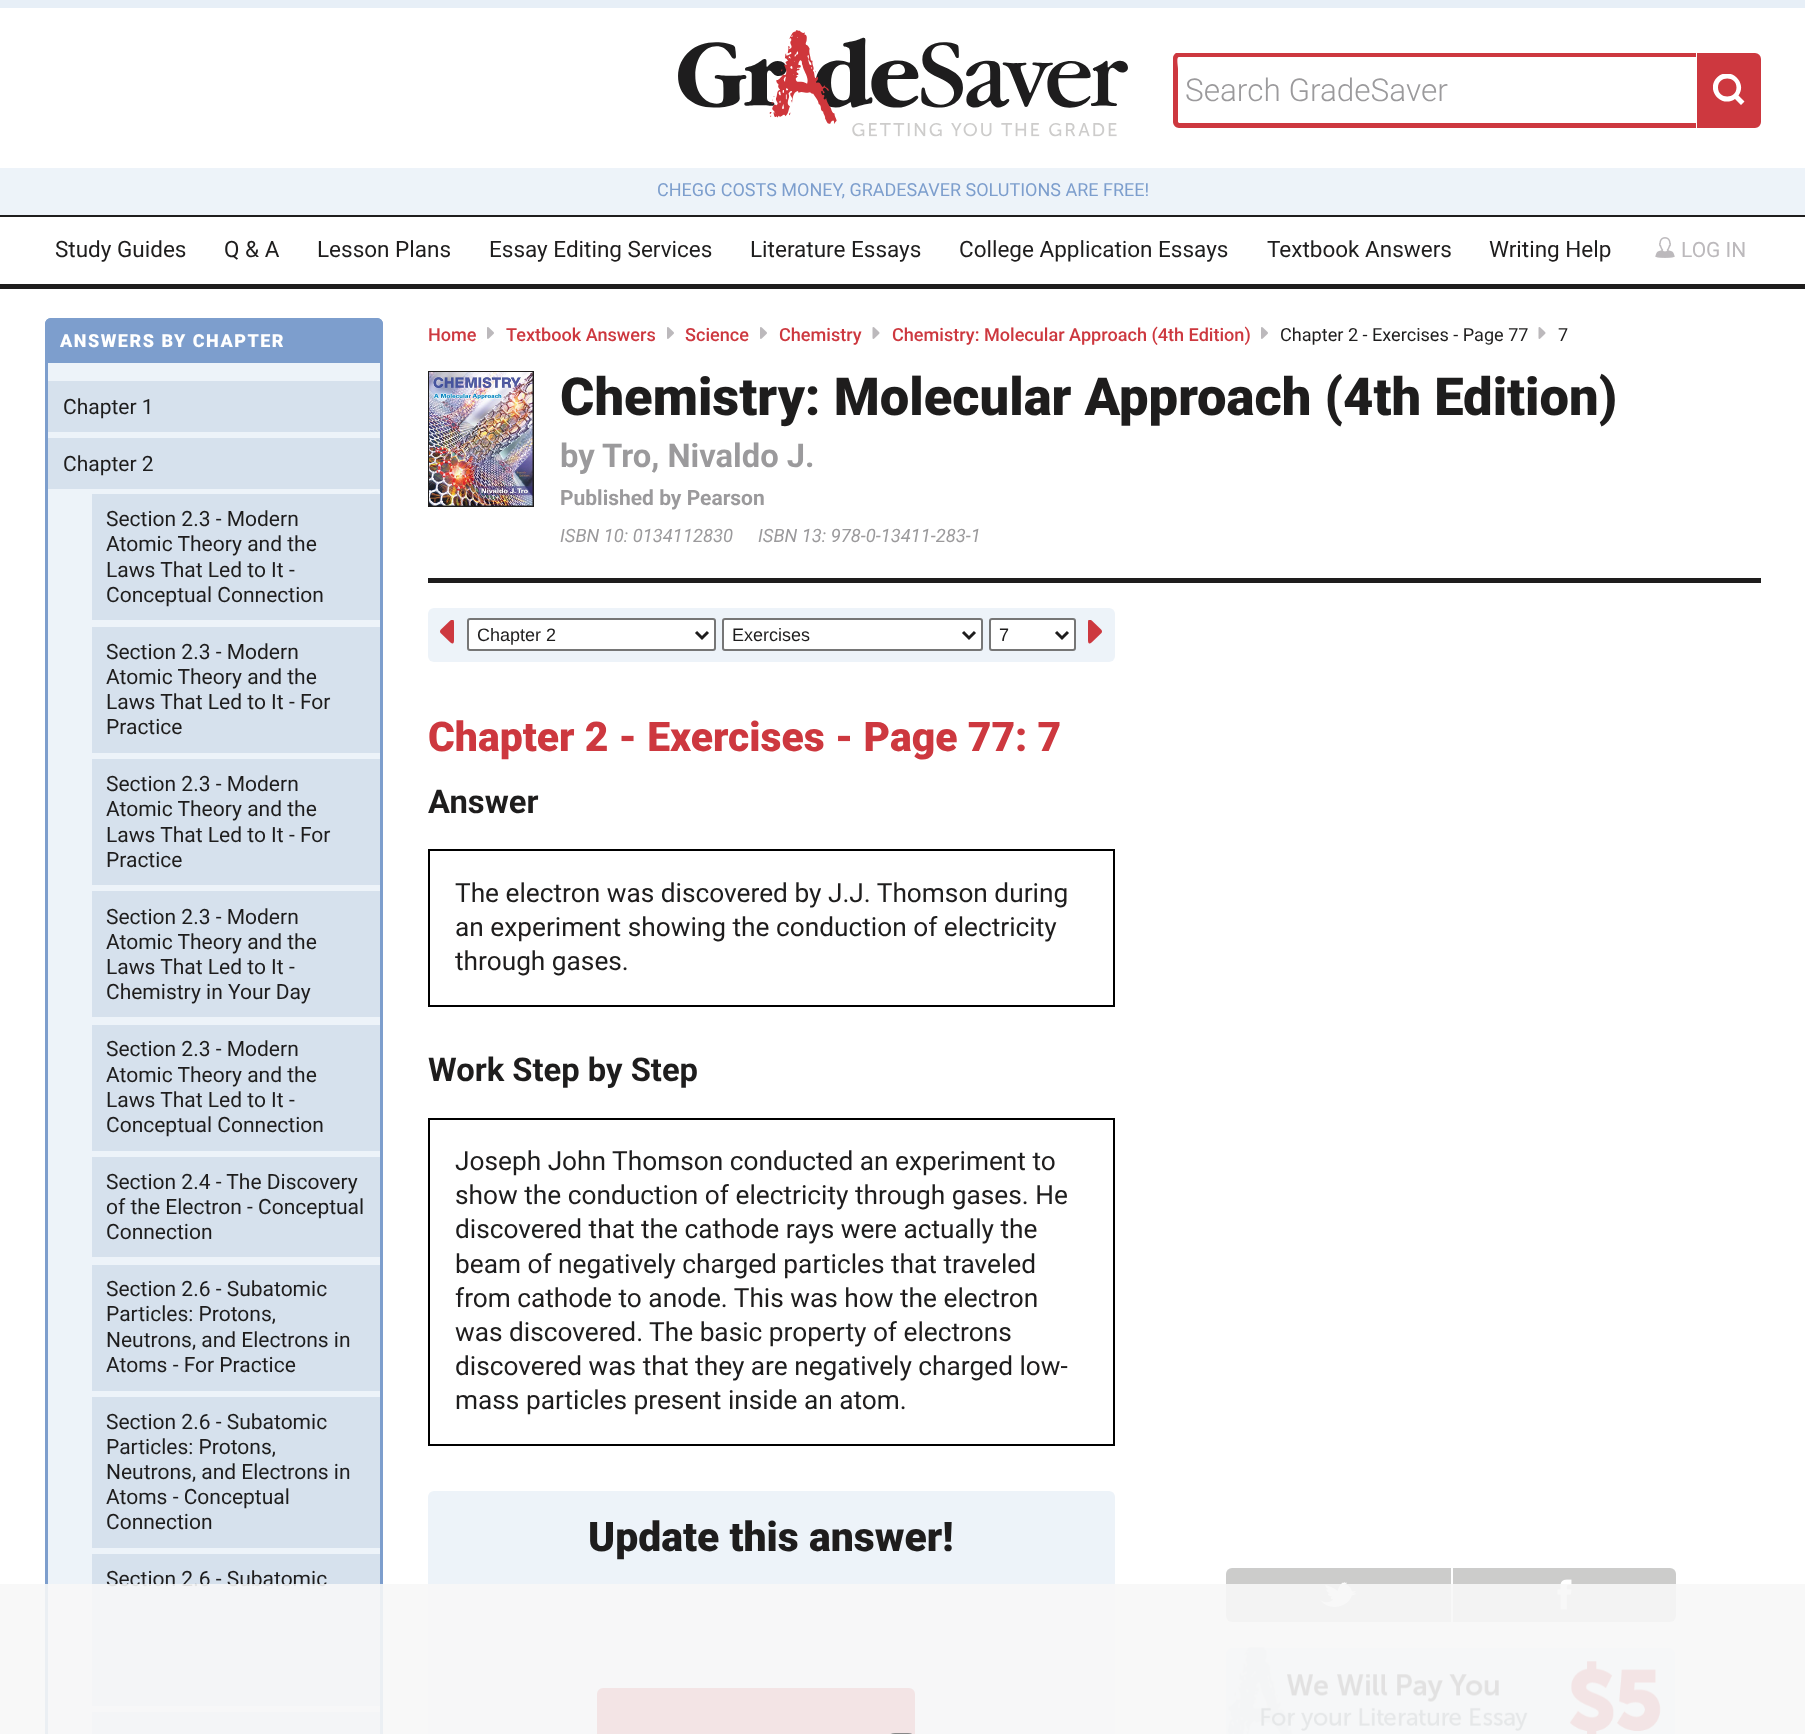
(async () => {
const canvas = document.querySelector("canvas")
canvas.width = 1805
canvas.height = 1734
const c = canvas.getContext("2d")
c.miterLimit = 4
c.fontKerning = "normal"
function T(s,x,y){c.fillText(s,x,y)}
function R(x,y,w,h){c.fillRect(x,y,w,h)}
function Q(x,y,w,h,r){c.beginPath();c.roundRect(x,y,w,h,r);c.fill()}
async function I(src,x,y,w,h){const img=new Image();img.src=src;await img.decode();c.drawImage(img,x,y,w,h)}
let path
c.fillStyle="#e7eff7"
R(0,0,1805,1734)
c.fillStyle="#fff"
R(0,8,1805,1726)
await I("1.png",678,30,450,107)
c.save()
c.beginPath()
c.rect(1173,53,588,75)
c.clip()
c.fillStyle="#cd383f"
path = new Path2D("M1179 52h517v76h-517c-3 0-6-3-6-6v-64c0-3 3-6 6-6zm0 5h517v66h-517l-1-1v-53c0-3-2-12 1-12z")
c.fill(path,"evenodd")
c.restore()
c.font="300 31.5px Roboto"
c.fillStyle="#9b9a9c"
T("Search GradeSaver",1185,101)
c.fillStyle="#cd383f"
c.beginPath()
c.roundRect(1698,54,62,73,[0,5,5,0])
c.fill()
c.strokeStyle="#cd383f"
c.lineWidth=2
c.stroke()
c.save()
c.beginPath()
c.rect(1713,74,32,31)
c.clip()
c.fillStyle="#fff"
path = new Path2D("M1744.5 101.5l-6-6c9.5-13.5-9-30-21.5-18c-12 12.5 4.5 31 18 21.5l6 6zm-26.5-14c0-12 18.5-12 18.5 0c0 12-18.5 12-18.5 0z")
c.fill(path)
c.restore()
c.fillStyle="#edf3f9"
R(0,168,1805,47)
c.font="18px Roboto"
c.fillStyle="#7d9ecd"
T("CHEGG COSTS MONEY, GRADESAVER SOLUTIONS ARE FREE!",657,196)
c.fillStyle="#1e1d1d"
R(0,215,1805,2)
R(0,284,1805,5)
c.font="22.5px Roboto"
T("Study Guides",55,257)
T("Q & A",224,257)
T("Lesson Plans",317,257)
T("Essay Editing Services",489,257)
T("Literature Essays",750,257)
T("College Application Essays",959,257)
T("Textbook Answers",1267,257)
T("Writing Help",1489,257)
await I("2.png",1655,237,20,21)
c.font="21px Roboto"
c.fillStyle="#bcb9bc"
T("LOG IN",1681,257)
c.fillStyle="#edf3f9"
c.beginPath()
c.roundRect(46.5,319.5,335,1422,4.5)
c.fill()
c.strokeStyle="#7d9ecd"
c.lineWidth=3
c.stroke()
c.fillStyle="#7d9ecd"
c.beginPath()
c.roundRect(45,318,338,45,[6,6,0,0])
c.fill()
c.letterSpacing="1.5px"
c.font="900 18px Roboto"
c.fillStyle="#fff"
T("ANSWERS BY CHAPTER",60,347)
c.fillStyle="#d6e1ed"
R(48,381,332,51)
c.letterSpacing="0px"
c.font="21px Roboto"
c.fillStyle="#1e1d1d"
T("Chapter 1",63,414)
c.fillStyle="#d6e1ed"
R(48,438,332,51)
c.fillStyle="#1e1d1d"
T("Chapter 2",63,471)
c.fillStyle="#d6e1ed"
R(92,494,288,126)
c.fillStyle="#1e1d1d"
T("Section 2.3 - Modern",106,526)
T("Atomic Theory and the",106,551)
T("Laws That Led to It -",106,577)
T("Conceptual Connection",106,602)
c.fillStyle="#d6e1ed"
R(92,627,288,126)
c.fillStyle="#1e1d1d"
T("Section 2.3 - Modern",106,659)
T("Atomic Theory and the",106,684)
T("Laws That Led to It - For",106,709)
T("Practice",106,734)
c.fillStyle="#d6e1ed"
R(92,759,288,126)
c.fillStyle="#1e1d1d"
T("Section 2.3 - Modern",106,791)
T("Atomic Theory and the",106,816)
T("Laws That Led to It - For",106,842)
T("Practice",106,867)
c.fillStyle="#d6e1ed"
R(92,891,288,126)
c.fillStyle="#1e1d1d"
T("Section 2.3 - Modern",106,924)
T("Atomic Theory and the",106,949)
T("Laws That Led to It -",106,974)
T("Chemistry in Your Day",106,999)
c.fillStyle="#d6e1ed"
R(92,1025,288,126)
c.fillStyle="#1e1d1d"
T("Section 2.3 - Modern",106,1056)
T("Atomic Theory and the",106,1082)
T("Laws That Led to It -",106,1107)
T("Conceptual Connection",106,1132)
c.fillStyle="#d6e1ed"
R(92,1157,288,100)
c.fillStyle="#1e1d1d"
T("Section 2.4 - The Discovery",106,1189)
T("of the Electron - Conceptual",106,1214)
T("Connection",106,1239)
c.fillStyle="#d6e1ed"
R(92,1265,288,126)
c.fillStyle="#1e1d1d"
T("Section 2.6 - Subatomic",106,1296)
T("Particles: Protons,",106,1321)
T("Neutrons, and Electrons in",106,1347)
T("Atoms - For Practice",106,1372)
c.fillStyle="#d6e1ed"
R(92,1397,288,151)
c.fillStyle="#1e1d1d"
T("Section 2.6 - Subatomic",106,1429)
T("Particles: Protons,",106,1454)
T("Neutrons, and Electrons in",106,1479)
T("Atoms - Conceptual",106,1504)
T("Connection",106,1529)
c.fillStyle="#d6e1ed"
R(92,1554,288,152)
c.fillStyle="#1e1d1d"
T("Section 2.6 - Subatomic",106,1586)
c.fillStyle="#d6e1ed"
R(92,1712,288,22)
c.fillStyle="#1e1d1d"
R(428,578,1333,5)
c.font="500 18.1px Roboto"
c.fillStyle="#cd383f"
T("Home",428,341)
await I("3.png",487,327,7,12)
T("Textbook Answers",506,341)
await I("3.png",667,327,7,12)
T("Science",685,341)
await I("3.png",760,327,7,12)
T("Chemistry",779,341)
await I("4.png",872,327,8,12)
T("Chemistry: Molecular Approach (4th Edition)",892,341)
await I("3.png",1261,327,7,12)
c.font="18.1px Roboto"
c.fillStyle="#1e1d1d"
T("Chapter 2 - Exercises - Page 77",1280,341)
await I("4.png",1538,327,8,12)
T("7",1558,341)
c.strokeStyle="#1e1d1d"
c.lineWidth=2
c.strokeRect(429,372,104,134)
await I("5.png",429,372,104,134)
c.font="900 52.5px Roboto"
T("Chemistry: Molecular Approach (4th Edition)",560,415)
c.font="bold 32.75px Roboto"
c.fillStyle="#9b9a9c"
T("by Tro, Nivaldo J.",560,467)
c.font="bold 21px Roboto"
T("Published by Pearson",560,505)
c.font="italic 18.4px Roboto"
T("ISBN 10: 0134112830",560,542)
T("ISBN 13: 978-0-13411-283-1",758,542)
c.fillStyle="#edf3f9"
Q(428,608,687,54,6)
await I("6.png",440,620,14,24)
c.fillStyle="#fff"
c.beginPath()
c.roundRect(468,619,247,31,2)
c.fill()
c.strokeStyle="#767676"
c.stroke()
path = new Path2D("M696 632l6 6l6-6")
c.strokeStyle="#1e1d1d"
c.lineWidth=3
c.stroke(path)
c.font="18px Liberation Sans"
c.fillStyle="#1e1d1d"
T("Chapter 2",477,641)
c.fillStyle="#fff"
c.beginPath()
c.roundRect(723,619,259,31,2)
c.fill()
c.strokeStyle="#767676"
c.lineWidth=2
c.stroke()
path = new Path2D("M963 632l6 6l6-6")
c.strokeStyle="#1e1d1d"
c.lineWidth=3
c.stroke(path)
c.fillStyle="#1e1d1d"
T("Exercises",732,641)
c.fillStyle="#fff"
c.beginPath()
c.roundRect(990,619,85,31,2)
c.fill()
c.strokeStyle="#767676"
c.lineWidth=2
c.stroke()
path = new Path2D("M1056 632l6 6l6-6")
c.strokeStyle="#1e1d1d"
c.lineWidth=3
c.stroke(path)
c.fillStyle="#1e1d1d"
T("7",999,641)
await I("7.png",1088,620,14,24)
c.font="900 40.9px Roboto"
c.fillStyle="#cd383f"
T("Chapter 2 - Exercises - Page 77: 7",428,751)
c.font="bold 32.75px Roboto"
c.fillStyle="#1e1d1d"
T("Answer",428,813)
c.strokeStyle="#000"
c.lineWidth=2
c.strokeRect(429,850,685,156)
c.font="26.25px Roboto"
T("The electron was discovered by J.J. Thomson during",455,902)
T("an experiment showing the conduction of electricity",455,936)
T("through gases.",455,970)
c.font="bold 32.75px Roboto"
T("Work Step by Step",428,1081)
c.strokeRect(429,1119,685,326)
c.font="26.25px Roboto"
T("Joseph John Thomson conducted an experiment to",455,1170)
T("show the conduction of electricity through gases. He",455,1204)
T("discovered that the cathode rays were actually the",455,1238)
T("beam of negatively charged particles that traveled",455,1273)
T("from cathode to anode. This was how the electron",455,1307)
T("was discovered. The basic property of electrons",455,1341)
T("discovered was that they are negatively charged low-",455,1375)
T("mass particles present inside an atom.",455,1409)
c.fillStyle="#edf3f9"
Q(428,1491,687,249,6)
c.font="900 40.9px Roboto"
c.fillStyle="#1e1d1d"
T("Update this answer!",588,1551)
c.fillStyle="#cd383f"
c.beginPath()
c.roundRect(598,1689,316,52,5)
c.fill()
c.strokeStyle="#cd383f"
c.stroke()
c.fillStyle="#cccccb"
Q(1226,1568,450,54,6)
await I("8.png",1320,1582,36,25)
c.fillStyle="#fff"
R(1451,1568,2,54)
await I("9.png",1557,1579,15,31)
await I("10.png",1226,1647,450,87)
c.fillStyle="#f7f7f7e6"
R(0,1584,1805,150)
c.beginPath()
c.roundRect(886,1734,31,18,15.5)
c.strokeStyle="#f6f2f2"
c.stroke()
c.beginPath()
c.roundRect(886,1734,31,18,15.5)
c.strokeStyle="#888"
c.stroke()
})()
